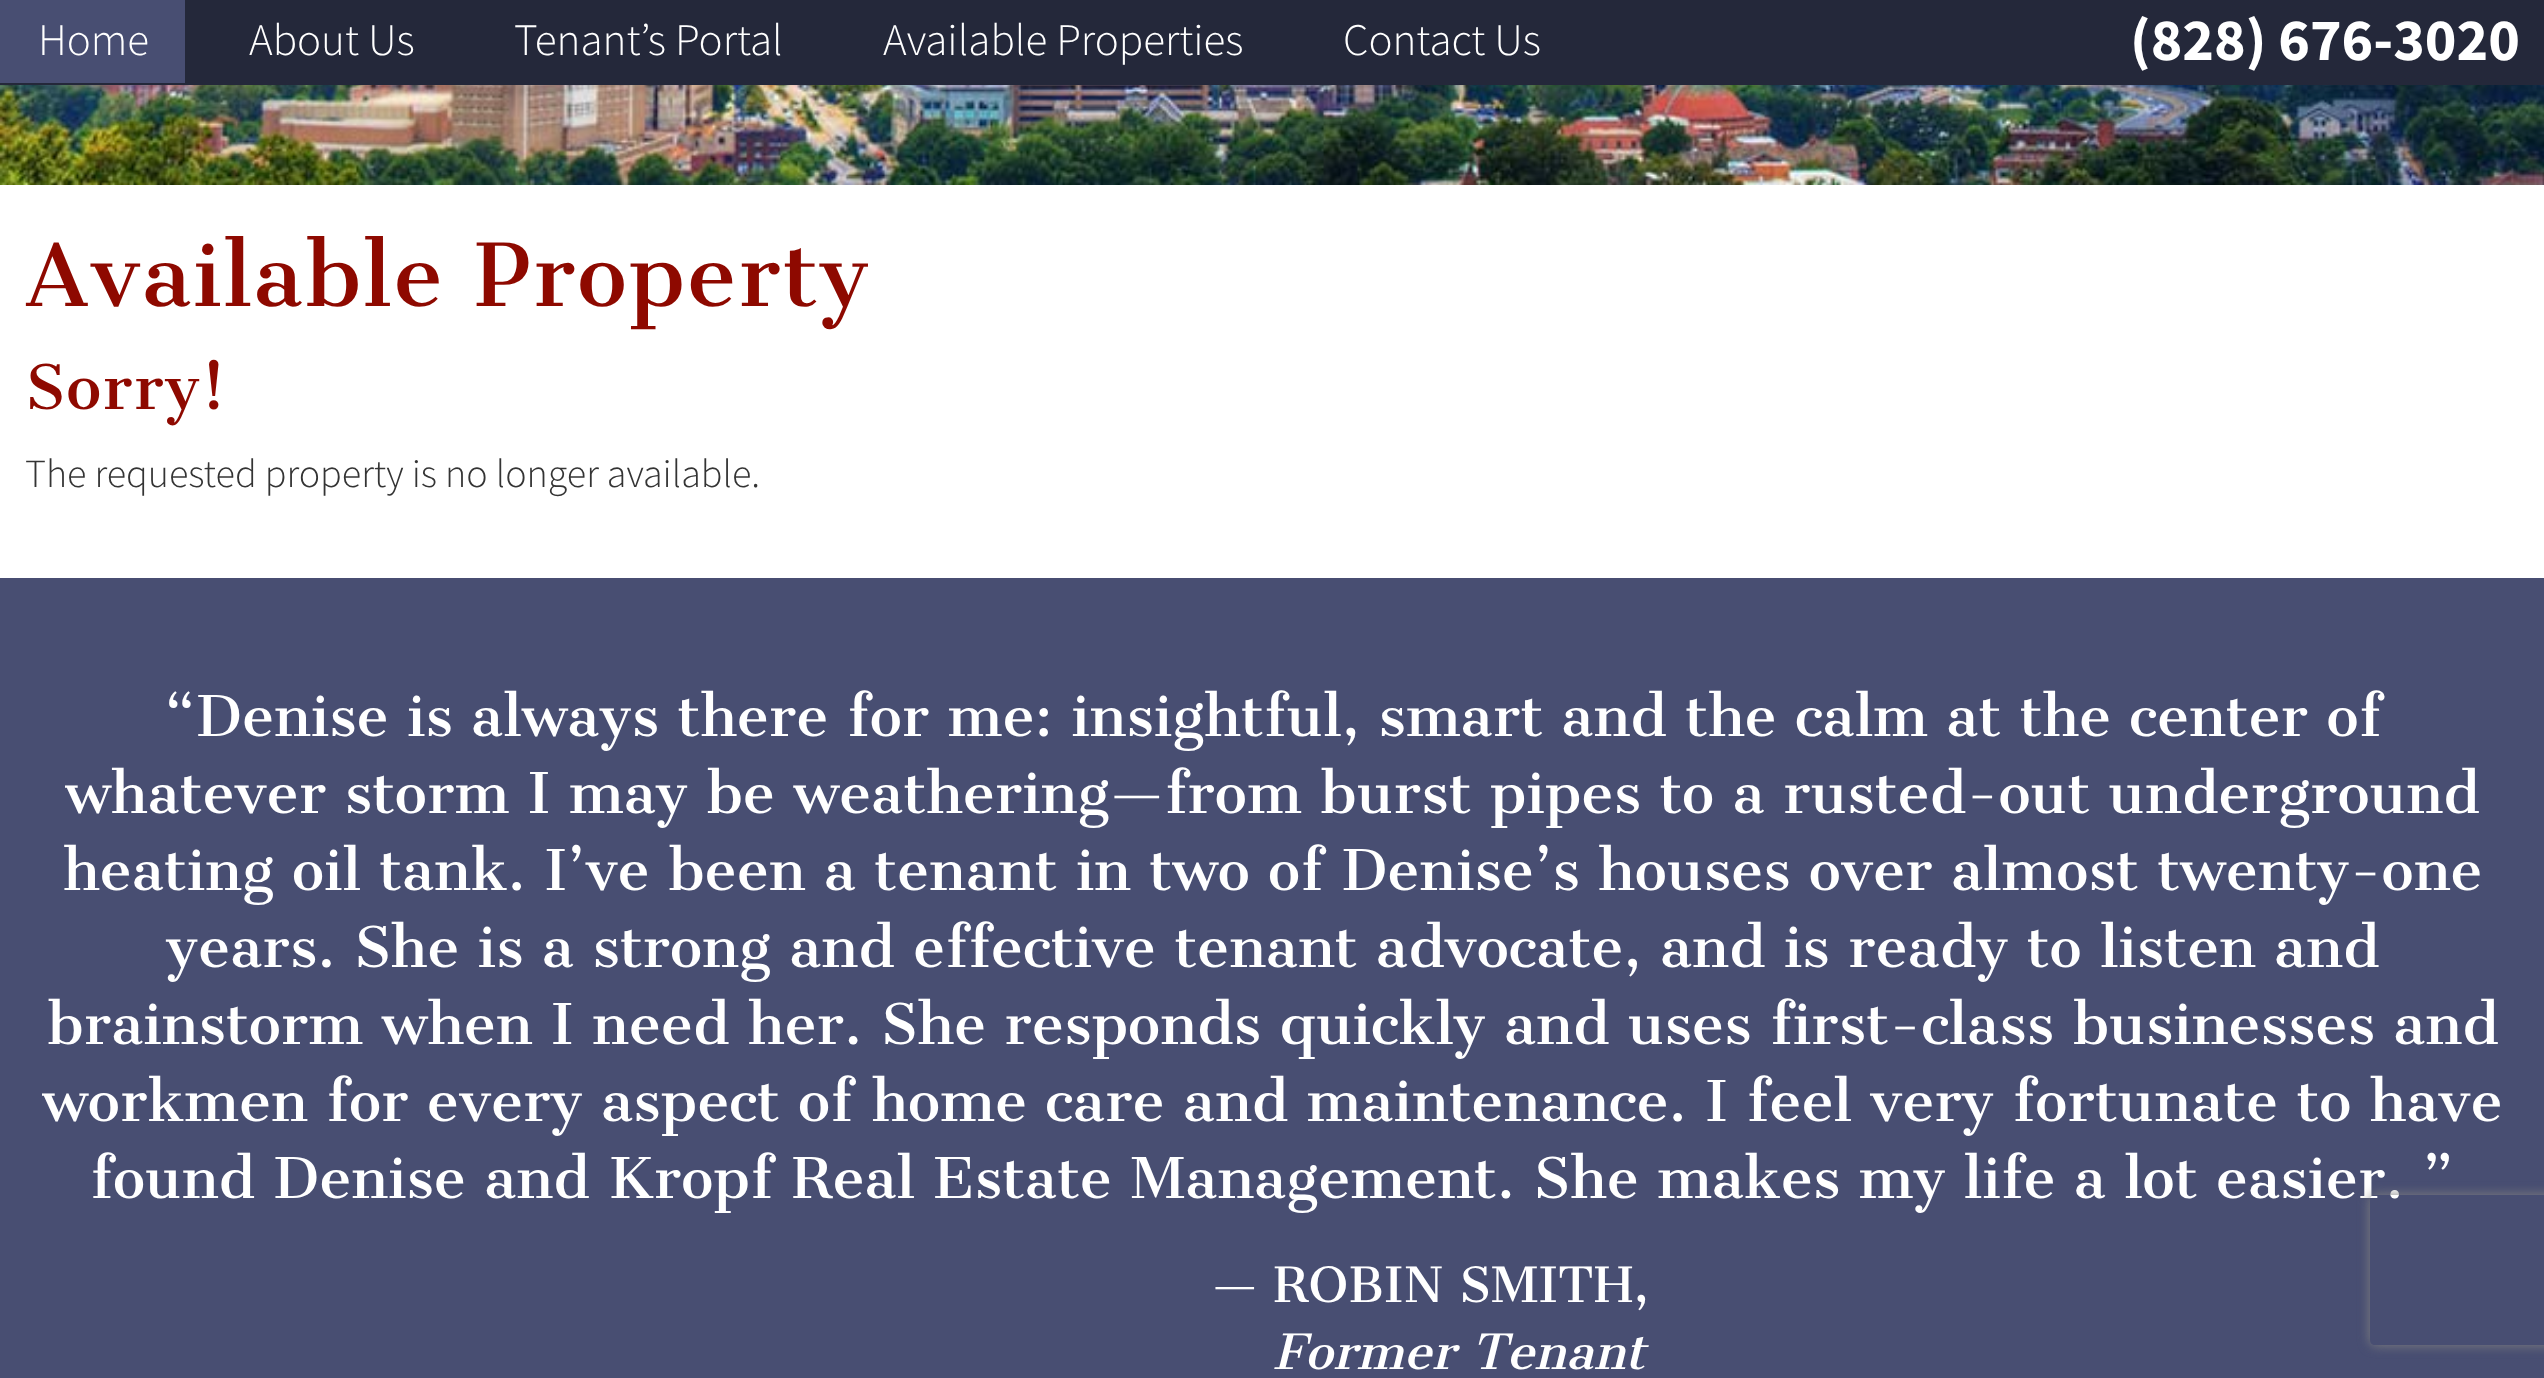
(async () => {
const canvas = document.querySelector("canvas")
canvas.width = 2544
canvas.height = 1378
const c = canvas.getContext("2d")
c.miterLimit = 4
c.fontKerning = "normal"
function T(s,x,y){c.fillText(s,x,y)}
function R(x,y,w,h){c.fillRect(x,y,w,h)}
async function I(src,x,y,w,h){const img=new Image();img.src=src;await img.decode();c.drawImage(img,x,y,w,h)}
let path
c.fillStyle="#fff"
R(0,0,2544,1378)
c.fillStyle="#24283a"
R(0,0,2544,85)
c.fillStyle="#484e72"
R(0,0,185,83)
c.font="300 45px Source Sans Pro"
c.fillStyle="#fff"
T("Home",38,55)
T("About Us",249,55)
T("Tenant’s Portal",514,55)
T("Available Properties",883,55)
T("Contact Us",1343,55)
c.font="bold 60px Source Sans Pro"
T("(828) 676-3020",2130,60)
await I("1.png",0,85,2544,100)
c.letterSpacing="1.75px"
c.font="85px Cantata One"
c.fillStyle="#8e0900"
T("Available Property",25,306)
c.letterSpacing="1.25px"
c.font="60px Cantata One"
T("Sorry!",25,409)
c.letterSpacing="0px"
c.font="300 40px Source Sans Pro"
c.fillStyle="#343434"
T("The requested property is no longer available.",25,487)
c.fillStyle="#484e72"
R(0,578,2544,800)
c.font="55px Cantata One"
c.fillStyle="#fff"
T("“Denise is always there for me: insightful, smart and the calm at the center of",164,736)
T("whatever storm I may be weathering—from burst pipes to a rusted-out underground",65,813)
T("heating oil tank. I’ve been a tenant in two of Denise’s houses over almost twenty-one",63,890)
T("years. She is a strong and effective tenant advocate, and is ready to listen and",166,967)
T("brainstorm when I need her. She responds quickly and uses first-class businesses and",47,1044)
T("workmen for every aspect of home care and maintenance. I feel very fortunate to have",42,1121)
T("found Denise and Kropf Real Estate Management. She makes my life a lot easier. ”",90,1198)
c.font="47.5px Cantata One"
T("—",1211,1302)
T("ROBIN SMITH,",1273,1302)
c.font="italic 47.5px Cantata One"
T("Former Tenant",1273,1369)
c.save()
path = new Path2D("M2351 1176h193v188h-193zm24 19h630c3 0 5 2 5 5v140c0 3-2 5-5 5h-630c-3 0-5-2-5-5v-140c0-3 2-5 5-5z")
c.clip(path,"evenodd")
c.fillStyle="#808080"
c.filter="blur(6px)"
c.beginPath()
c.roundRect(2370,1195,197,150,5)
c.fill()
c.filter="none"
c.restore()
})()
